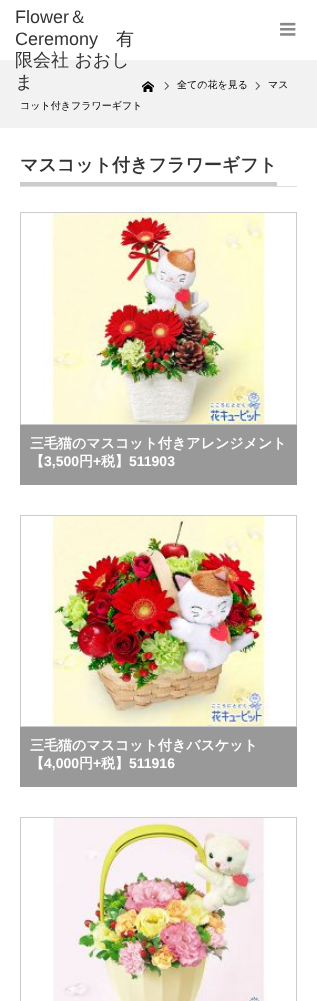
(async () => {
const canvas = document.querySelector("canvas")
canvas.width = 317
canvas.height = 1001
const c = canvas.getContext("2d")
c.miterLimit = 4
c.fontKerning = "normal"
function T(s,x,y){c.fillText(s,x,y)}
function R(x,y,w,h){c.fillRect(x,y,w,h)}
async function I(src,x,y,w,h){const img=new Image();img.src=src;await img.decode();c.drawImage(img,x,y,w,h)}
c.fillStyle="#fff"
R(0,0,317,1001)
c.font="18px Liberation Sans"
c.fillStyle="#333"
T("Flower",15,23)
c.font="500 18px WenQuanYi Zen Hei"
T("＆",69,23)
c.font="18px Liberation Sans"
T("Ceremony",15,45)
c.font="500 18px WenQuanYi Zen Hei"
T("有",116,45)
c.fillStyle="#f2f2f2"
R(0,60,317,68)
c.fillStyle="#333"
T("限会社 おおし",15,66)
T("ま",15,88)
await I("1.png",280,22,16,14)
await I("2.png",164,82,5,8)
c.font="500 10px WenQuanYi Zen Hei"
c.fillStyle="#000"
T("全ての花を見る",177,88)
await I("2.png",255,82,5,8)
T("マス",268,88)
T("コット付きフラワーギフト",20,109)
await I("3.png",142,81,12,11)
c.fillStyle="#ddd"
R(20,186,277,1)
c.fillStyle="#ccc"
R(20,182,257,4)
c.font="bold 18px WenQuanYi Zen Hei"
c.fillStyle="#333"
T("マスコット付きフラワーギフト",20,171)
c.strokeStyle="#ccc"
c.strokeRect(20.5,212.5,276,212)
await I("4.png",43,213,227,211)
c.fillStyle="#999"
R(20,425,277,60)
c.font="bold 14px WenQuanYi Zen Hei"
c.fillStyle="#fff"
T("三毛猫のマスコット付きアレンジメント",30,448)
T("【",30,466)
c.font="bold 14px Liberation Sans"
T("3,500",44,466)
c.font="bold 14px WenQuanYi Zen Hei"
T("円",79,466)
c.font="bold 14px Liberation Sans"
T("+",93,466)
c.font="bold 14px WenQuanYi Zen Hei"
T("税】",101,466)
c.font="bold 14px Liberation Sans"
T("511903",129,466)
c.strokeRect(20.5,515.5,276,211)
await I("5.png",48,516,222,210)
c.fillStyle="#999"
R(20,727,277,60)
c.font="bold 14px WenQuanYi Zen Hei"
c.fillStyle="#fff"
T("三毛猫のマスコット付きバスケット",30,750)
T("【",30,768)
c.font="bold 14px Liberation Sans"
T("4,000",44,768)
c.font="bold 14px WenQuanYi Zen Hei"
T("円",79,768)
c.font="bold 14px Liberation Sans"
T("+",93,768)
c.font="bold 14px WenQuanYi Zen Hei"
T("税】",101,768)
c.font="bold 14px Liberation Sans"
T("511916",129,768)
c.strokeRect(20.5,817.5,276,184)
await I("6.png",53,818,216,183)
})()
